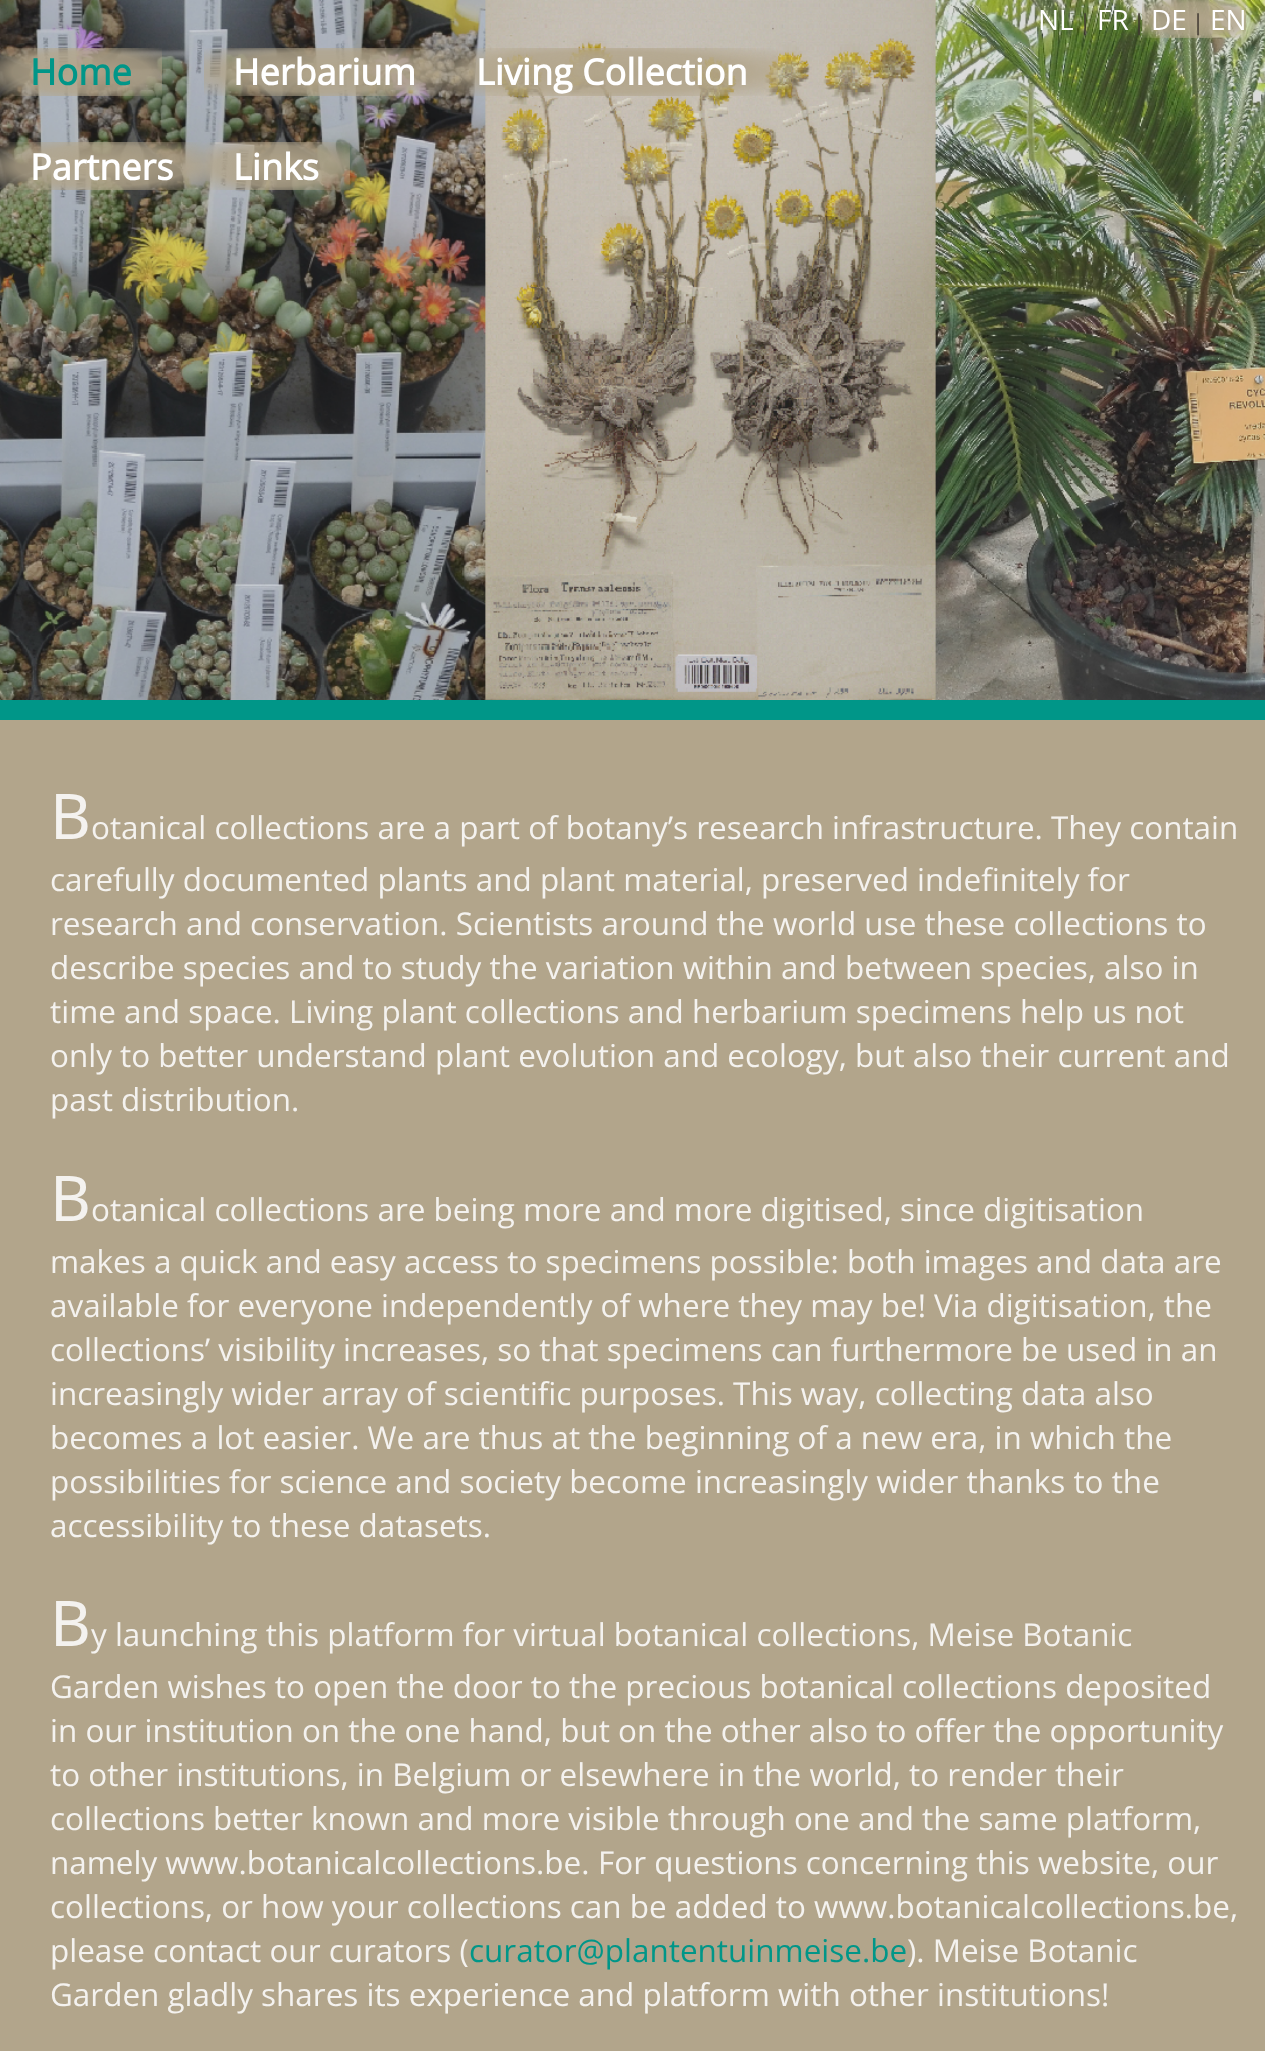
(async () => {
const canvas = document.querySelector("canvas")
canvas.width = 1265
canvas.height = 2051
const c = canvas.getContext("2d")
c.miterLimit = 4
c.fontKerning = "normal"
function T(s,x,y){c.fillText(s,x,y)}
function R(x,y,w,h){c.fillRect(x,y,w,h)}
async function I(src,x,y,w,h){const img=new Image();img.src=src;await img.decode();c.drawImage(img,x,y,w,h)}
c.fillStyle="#b2a58b"
R(0,0,1265,2051)
await I("1.png",0,0,1265,700)
c.font="28px Open Sans"
c.fillStyle="#fff"
T("NL",1038,30)
c.font="22px Open Sans"
c.fillStyle="#403932"
T("|",1079,30)
c.font="28px Open Sans"
c.fillStyle="#fff"
T("FR",1097,30)
c.font="22px Open Sans"
c.fillStyle="#403932"
T("|",1133,30)
c.font="28px Open Sans"
c.fillStyle="#fff"
T("DE",1151,30)
c.font="22px Open Sans"
c.fillStyle="#403932"
T("|",1192,30)
c.font="28px Open Sans"
c.fillStyle="#fff"
T("EN",1210,30)
c.font="bold 36px Open Sans"
c.fillStyle="#009688"
T("Home",30,85)
c.fillStyle="#fff"
T("Herbarium",233,85)
T("Living Collection",476,85)
T("Partners",30,180)
T("Links",233,180)
c.fillStyle="#009688"
R(0,700,1265,20)
c.font="63px Noto Sans"
c.fillStyle="#f4f2ef"
T("B",50,839)
c.font="31.45px Open Sans"
T("otanical collections are a part of botany’s research infrastructure. They contain",91,839)
T("carefully documented plants and plant material, preserved indefinitely for",50,891)
T("research and conservation. Scientists around the world use these collections to",50,935)
T("describe species and to study the variation within and between species, also in",50,979)
T("time and space. Living plant collections and herbarium specimens help us not",50,1023)
T("only to better understand plant evolution and ecology, but also their current and",50,1067)
T("past distribution.",50,1111)
c.font="63px Noto Sans"
T("B",50,1221)
c.font="31.45px Open Sans"
T("otanical collections are being more and more digitised, since digitisation",91,1221)
T("makes a quick and easy access to specimens possible: both images and data are",50,1273)
T("available for everyone independently of where they may be! Via digitisation, the",50,1317)
T("collections’ visibility increases, so that specimens can furthermore be used in an",50,1361)
T("increasingly wider array of scientific purposes. This way, collecting data also",50,1405)
T("becomes a lot easier. We are thus at the beginning of a new era, in which the",50,1449)
T("possibilities for science and society become increasingly wider thanks to the",50,1493)
T("accessibility to these datasets.",50,1537)
c.font="63px Noto Sans"
T("B",50,1646)
c.font="31.45px Open Sans"
T("y launching this platform for virtual botanical collections, Meise Botanic",91,1646)
T("Garden wishes to open the door to the precious botanical collections deposited",50,1698)
T("in our institution on the one hand, but on the other also to offer the opportunity",50,1742)
T("to other institutions, in Belgium or elsewhere in the world, to render their",50,1786)
T("collections better known and more visible through one and the same platform,",50,1830)
T("namely www.botanicalcollections.be.",50,1874)
T("For questions concerning this website, our",598,1874)
T("collections, or how your collections can be added to www.botanicalcollections.be,",50,1918)
T("please contact our curators (",50,1962)
c.fillStyle="#009688"
T("curator@plantentuinmeise.be",469,1962)
c.fillStyle="#f4f2ef"
T("). Meise Botanic",907,1962)
T("Garden gladly shares its experience and platform with other institutions!",50,2006)
})()
